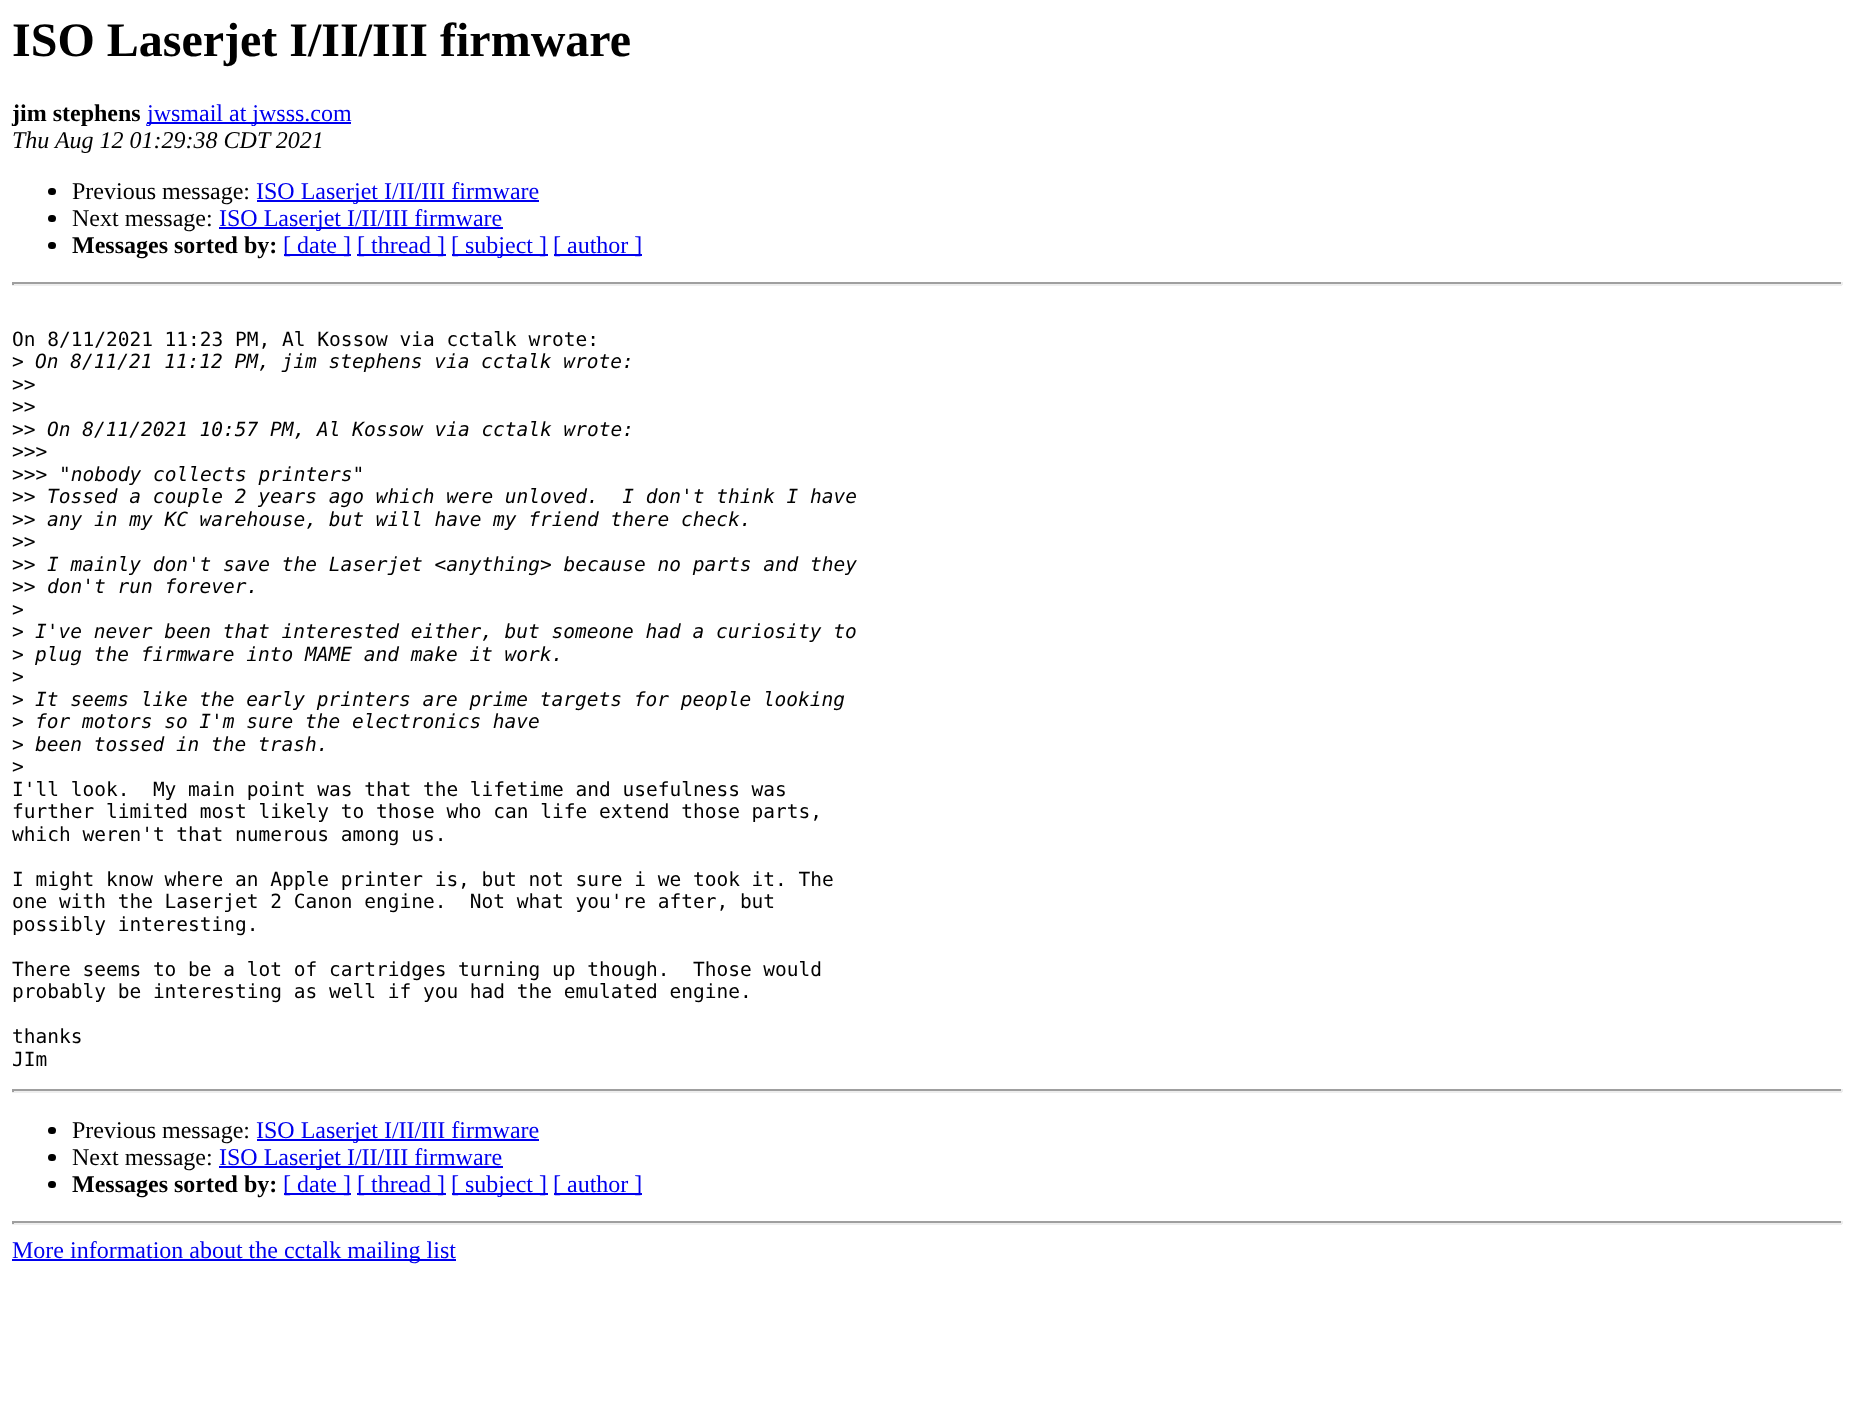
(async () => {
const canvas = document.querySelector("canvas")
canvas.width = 1853
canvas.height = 1402
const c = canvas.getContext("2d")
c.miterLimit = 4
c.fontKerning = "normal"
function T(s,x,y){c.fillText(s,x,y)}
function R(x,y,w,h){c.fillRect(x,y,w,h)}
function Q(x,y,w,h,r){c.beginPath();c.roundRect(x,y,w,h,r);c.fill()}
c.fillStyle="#fff"
R(0,0,1853,1402)
c.font="bold 48px Liberation Serif"
c.fillStyle="#000"
T("ISO Laserjet I/II/III firmware",12,56)
c.font="bold 24px Liberation Serif"
T("jim stephens",12,121)
c.fillStyle="#00e"
R(147,122,204,2)
c.font="24px Liberation Serif"
T("jwsmail at jwsss.com",147,121)
c.font="italic 24px Liberation Serif"
c.fillStyle="#000"
T("Thu Aug 12 01:29:38 CDT 2021",12,148)
Q(48,188,8,7,3.5)
c.font="24px Liberation Serif"
T("Previous message:",72,199)
c.fillStyle="#00e"
R(257,200,282,2)
T("ISO Laserjet I/II/III firmware",256,199)
c.fillStyle="#000"
Q(48,215,8,7,3.5)
T("Next message:",72,226)
c.fillStyle="#00e"
R(219,227,284,2)
T("ISO Laserjet I/II/III firmware",219,226)
c.fillStyle="#000"
Q(48,242,8,7,3.5)
c.font="bold 24px Liberation Serif"
T("Messages sorted by:",72,253)
c.fillStyle="#00e"
R(284,254,67,2)
c.font="24px Liberation Serif"
T("[ date ]",283,253)
R(357,254,89,2)
T("[ thread ]",357,253)
R(452,254,96,2)
T("[ subject ]",451,253)
R(554,254,88,2)
T("[ author ]",553,253)
c.fillStyle="#9f9f9f"
R(12,282,1830,2)
c.fillStyle="#eee"
R(1841,282,2,3)
R(12,284,1830,2)
c.fillStyle="#9f9f9f"
R(12,282,2,3)
c.font="19.5px DejaVu Sans Mono"
c.fillStyle="#000"
T("On 8/11/2021 11:23 PM, Al Kossow via cctalk wrote:",12,346)
T(">",12,368)
c.font="italic 19.5px DejaVu Sans Mono"
T("On 8/11/21 11:12 PM, jim stephens via cctalk wrote:",35,368)
c.font="19.5px DejaVu Sans Mono"
T(">>",12,391)
T(">>",12,413)
T(">>",12,436)
c.font="italic 19.5px DejaVu Sans Mono"
T("On 8/11/2021 10:57 PM, Al Kossow via cctalk wrote:",47,436)
c.font="19.5px DejaVu Sans Mono"
T(">>>",12,458)
T(">>>",12,481)
c.font="italic 19.5px DejaVu Sans Mono"
T("\"nobody collects printers\"",59,481)
c.font="19.5px DejaVu Sans Mono"
T(">>",12,503)
c.font="italic 19.5px DejaVu Sans Mono"
T("Tossed a couple 2 years ago which were unloved.  I don't think I have",47,503)
c.font="19.5px DejaVu Sans Mono"
T(">>",12,526)
c.font="italic 19.5px DejaVu Sans Mono"
T("any in my KC warehouse, but will have my friend there check.",47,526)
c.font="19.5px DejaVu Sans Mono"
T(">>",12,548)
T(">>",12,571)
c.font="italic 19.5px DejaVu Sans Mono"
T("I mainly don't save the Laserjet <anything> because no parts and they",47,571)
c.font="19.5px DejaVu Sans Mono"
T(">>",12,593)
c.font="italic 19.5px DejaVu Sans Mono"
T("don't run forever.",47,593)
c.font="19.5px DejaVu Sans Mono"
T(">",12,616)
T(">",12,638)
c.font="italic 19.5px DejaVu Sans Mono"
T("I've never been that interested either, but someone had a curiosity to",35,638)
c.font="19.5px DejaVu Sans Mono"
T(">",12,661)
c.font="italic 19.5px DejaVu Sans Mono"
T("plug the firmware into MAME and make it work.",35,661)
c.font="19.5px DejaVu Sans Mono"
T(">",12,683)
T(">",12,706)
c.font="italic 19.5px DejaVu Sans Mono"
T("It seems like the early printers are prime targets for people looking",35,706)
c.font="19.5px DejaVu Sans Mono"
T(">",12,728)
c.font="italic 19.5px DejaVu Sans Mono"
T("for motors so I'm sure the electronics have",35,728)
c.font="19.5px DejaVu Sans Mono"
T(">",12,751)
c.font="italic 19.5px DejaVu Sans Mono"
T("been tossed in the trash.",35,751)
c.font="19.5px DejaVu Sans Mono"
T(">",12,773)
T("I'll look.  My main point was that the lifetime and usefulness was",12,796)
T("further limited most likely to those who can life extend those parts,",12,818)
T("which weren't that numerous among us.",12,841)
T("I might know where an Apple printer is, but not sure i we took it. The",12,886)
T("one with the Laserjet 2 Canon engine.  Not what you're after, but",12,908)
T("possibly interesting.",12,931)
T("There seems to be a lot of cartridges turning up though.  Those would",12,976)
T("probably be interesting as well if you had the emulated engine.",12,998)
T("thanks",12,1043)
T("JIm",12,1066)
c.fillStyle="#9f9f9f"
R(12,1089,1830,2)
c.fillStyle="#eee"
R(1841,1089,2,3)
R(12,1091,1830,2)
c.fillStyle="#9f9f9f"
R(12,1089,2,3)
c.fillStyle="#000"
Q(48,1127,8,7,3.5)
c.font="24px Liberation Serif"
T("Previous message:",72,1138)
c.fillStyle="#00e"
R(257,1139,282,2)
T("ISO Laserjet I/II/III firmware",256,1138)
c.fillStyle="#000"
Q(48,1154,8,7,3.5)
T("Next message:",72,1165)
c.fillStyle="#00e"
R(219,1166,284,2)
T("ISO Laserjet I/II/III firmware",219,1165)
c.fillStyle="#000"
Q(48,1181,8,7,3.5)
c.font="bold 24px Liberation Serif"
T("Messages sorted by:",72,1192)
c.fillStyle="#00e"
R(284,1193,67,2)
c.font="24px Liberation Serif"
T("[ date ]",283,1192)
R(357,1193,89,2)
T("[ thread ]",357,1192)
R(452,1193,96,2)
T("[ subject ]",451,1192)
R(554,1193,88,2)
T("[ author ]",553,1192)
c.fillStyle="#9f9f9f"
R(12,1221,1830,2)
c.fillStyle="#eee"
R(1841,1221,2,3)
R(12,1223,1830,2)
c.fillStyle="#9f9f9f"
R(12,1221,2,3)
c.fillStyle="#00e"
R(12,1259,444,2)
T("More information about the cctalk mailing list",12,1258)
})()
